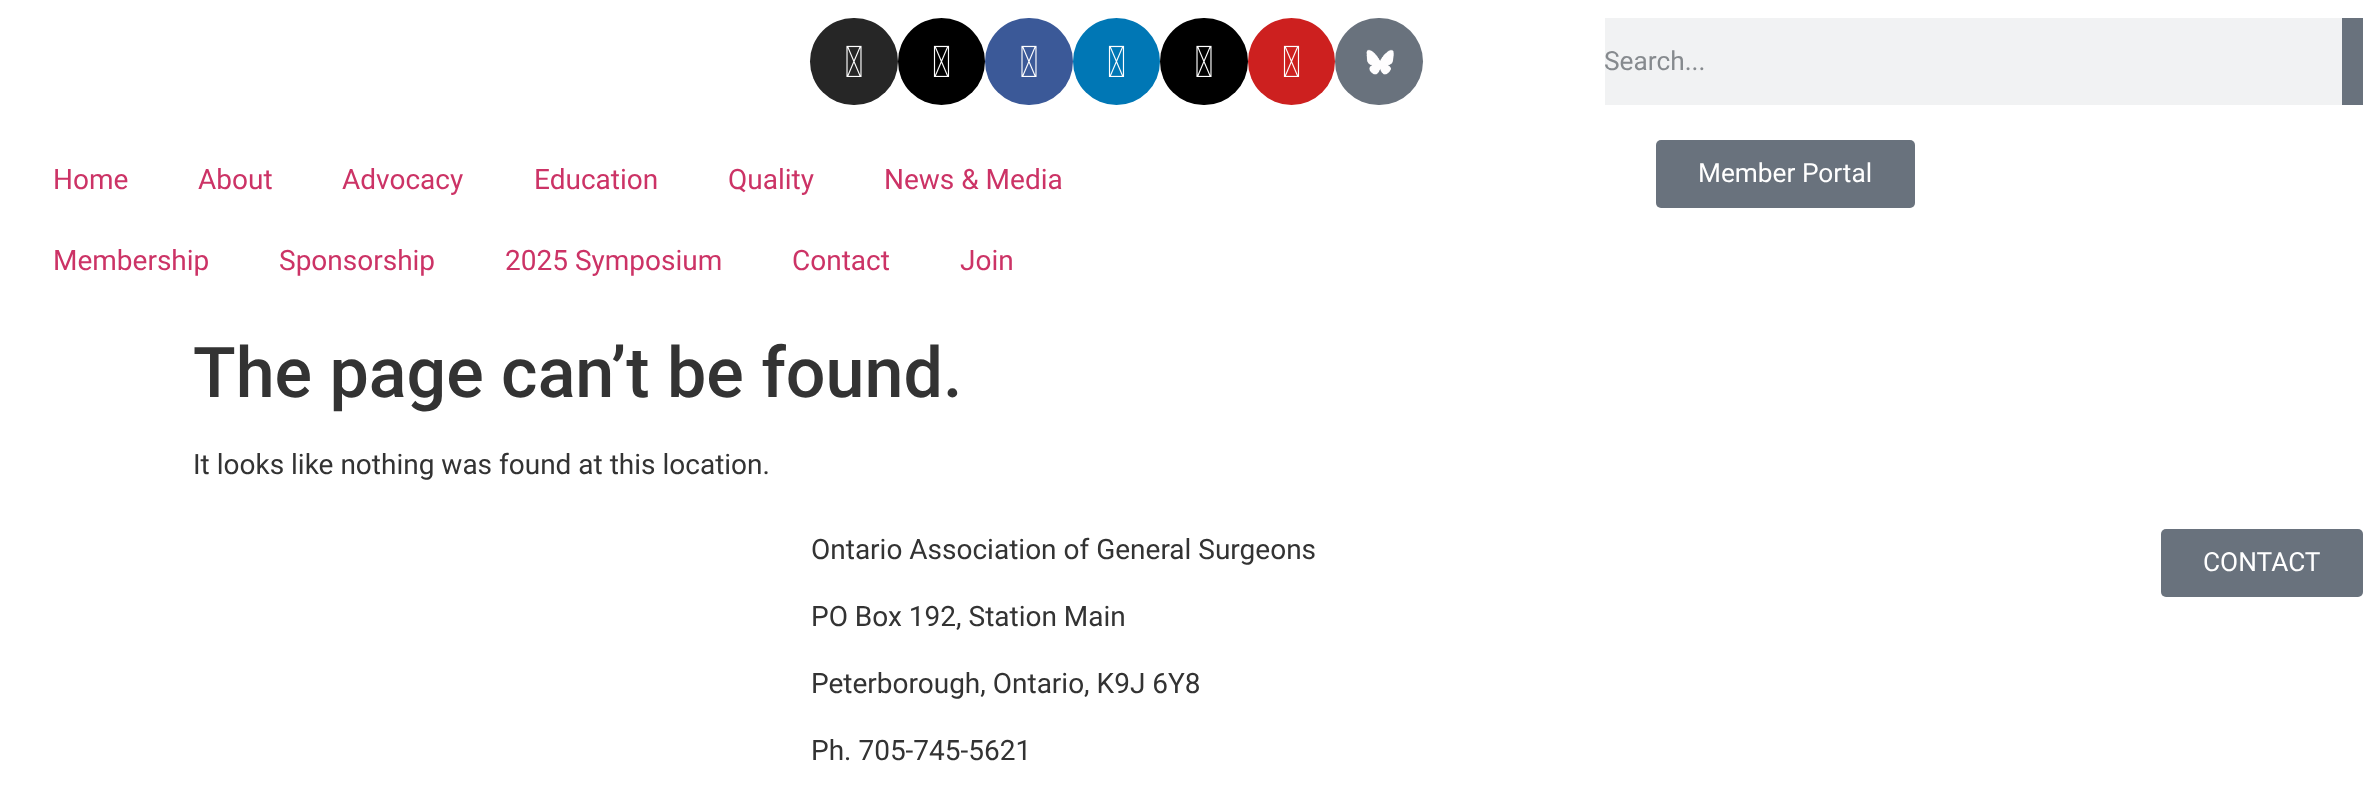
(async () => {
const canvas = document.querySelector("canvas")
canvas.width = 2380
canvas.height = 809
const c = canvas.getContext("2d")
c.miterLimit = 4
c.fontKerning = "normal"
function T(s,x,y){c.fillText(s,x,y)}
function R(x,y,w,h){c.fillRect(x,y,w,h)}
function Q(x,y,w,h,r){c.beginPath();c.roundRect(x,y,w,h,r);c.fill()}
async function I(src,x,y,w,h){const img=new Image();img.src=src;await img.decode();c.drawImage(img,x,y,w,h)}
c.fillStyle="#fff"
R(0,0,2380,809)
c.fillStyle="#262626"
Q(810,18,88,87,43.5)
await I("1.png",846,45,16,32)
c.fillStyle="#000"
c.beginPath()
c.arc(941.5,61.5,43.5,0,7)
c.fill()
await I("2.png",933,45,17,32)
c.fillStyle="#3b5998"
Q(985,18,88,87,43.5)
await I("3.png",1021,45,16,32)
c.fillStyle="#0077b5"
c.beginPath()
c.arc(1116.5,61.5,43.5,0,7)
c.fill()
await I("4.png",1108,45,17,32)
c.fillStyle="#000"
Q(1160,18,88,87,43.5)
await I("5.png",1196,45,16,32)
c.fillStyle="#cd201f"
c.beginPath()
c.arc(1291.5,61.5,43.5,0,7)
c.fill()
await I("6.png",1283,45,17,32)
c.fillStyle="#69727d"
Q(1335,18,88,87,43.5)
await I("7.png",1366,49,28,26)
c.fillStyle="#f1f2f3"
R(1605,18,737,87)
c.font="26.25px Roboto"
c.fillStyle="#868a8e"
T("Search...",1604,70)
c.fillStyle="#69727d"
R(2342,18,21,87)
c.font="28px Roboto"
c.fillStyle="#c36"
T("Home",53,189)
T("About",198,189)
T("Advocacy",342,189)
T("Education",534,189)
T("Quality",728,189)
T("News & Media",884,189)
T("Membership",53,270)
T("Sponsorship",279,270)
T("2025 Symposium",505,270)
T("Contact",792,270)
T("Join",960,270)
c.fillStyle="#69727d"
Q(1656,140,259,68,5)
c.font="26.25px Roboto"
c.fillStyle="#fff"
T("Member Portal",1698,182)
c.font="500 70px Roboto"
c.fillStyle="#333"
T("The page can’t be found.",193,397)
c.font="28px Roboto"
T("It looks like nothing was found at this location.",193,474)
T("Ontario Association of General Surgeons",811,559)
T("PO Box 192, Station Main",811,626)
T("Peterborough, Ontario, K9J 6Y8",811,693)
T("Ph. 705-745-5621",811,760)
c.fillStyle="#69727d"
Q(2161,529,202,68,5)
c.font="26.25px Roboto"
c.fillStyle="#fff"
T("CONTACT",2203,571)
})()
